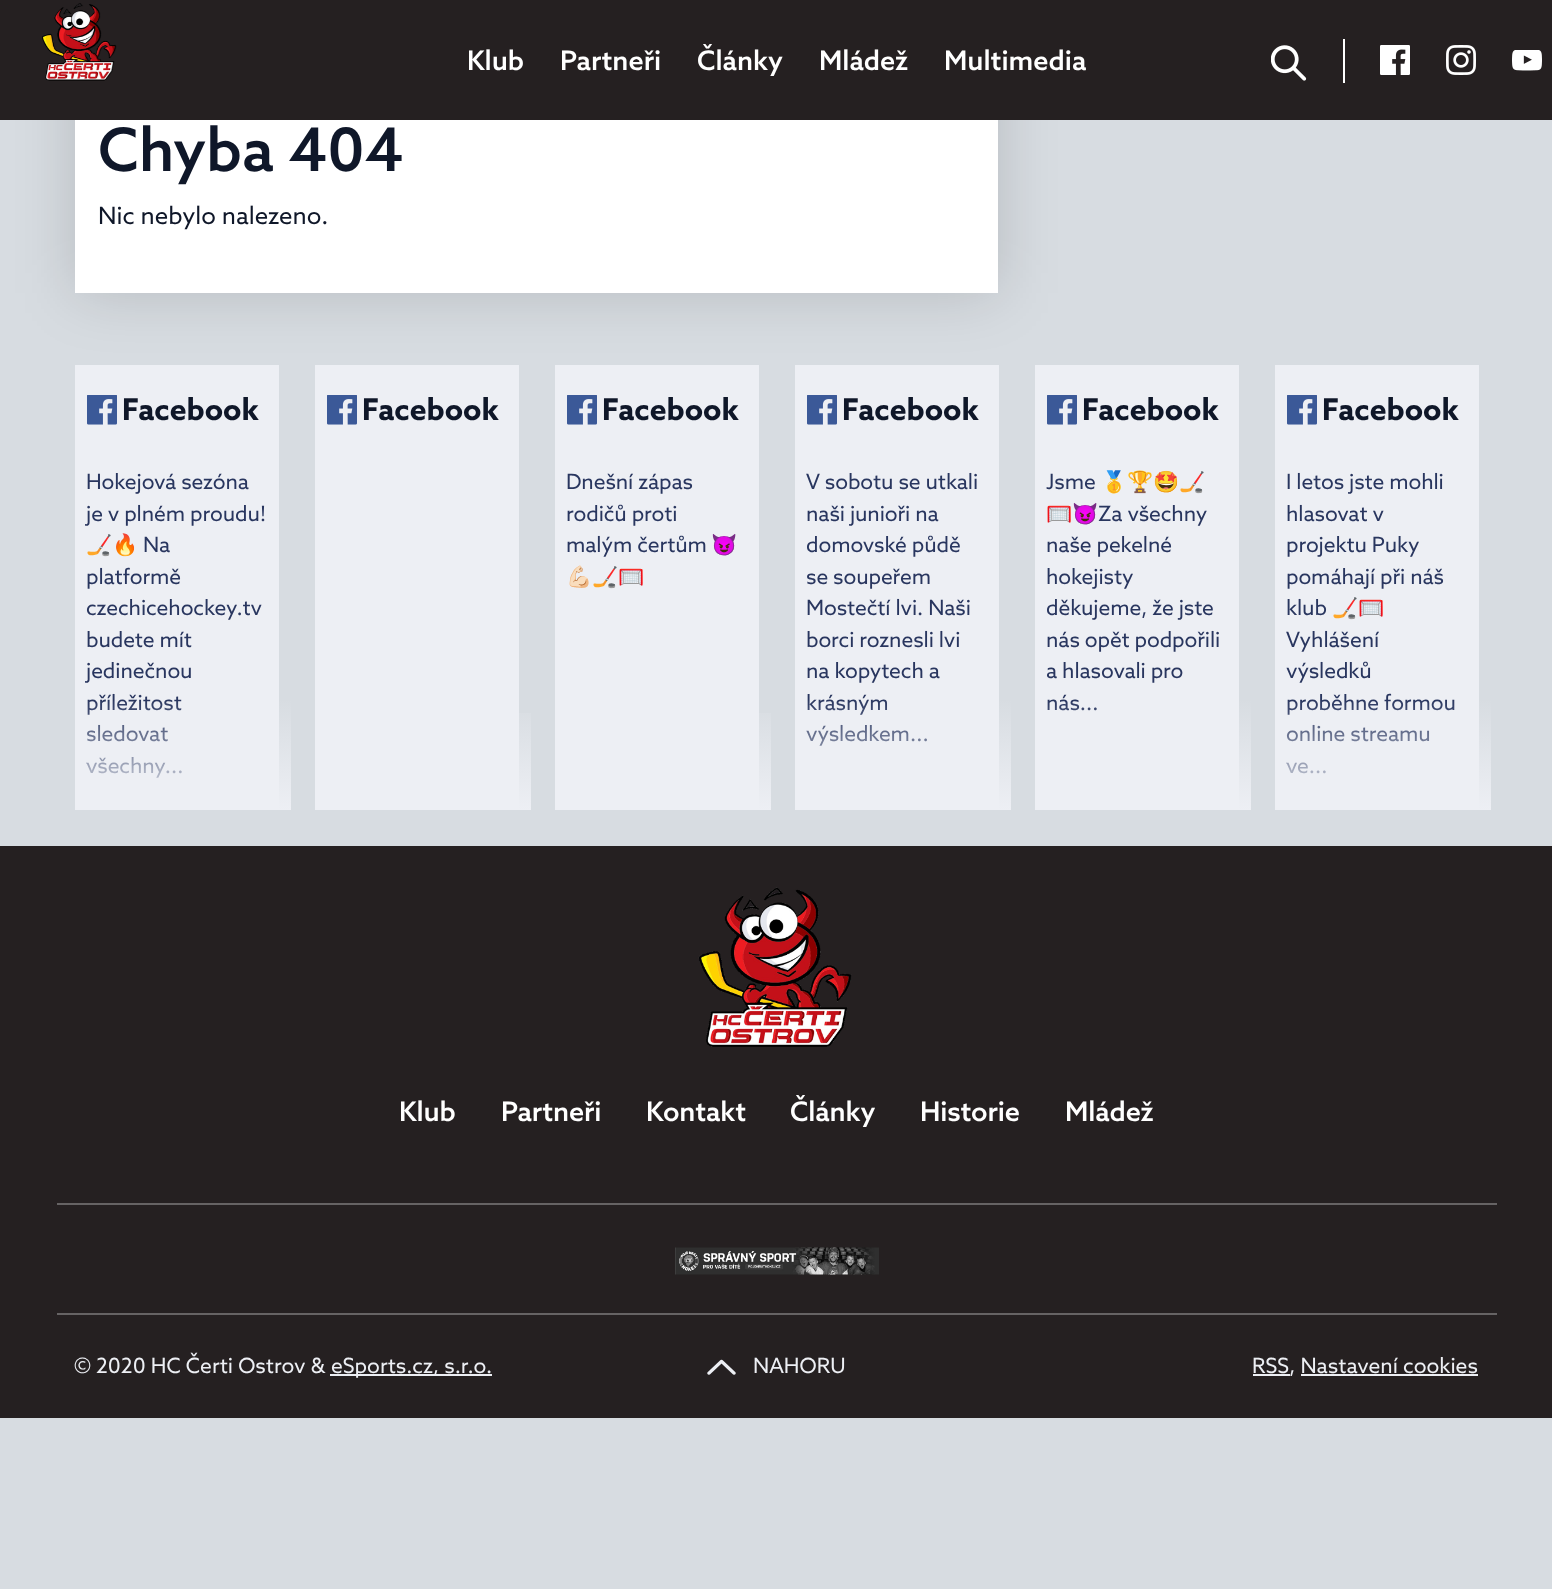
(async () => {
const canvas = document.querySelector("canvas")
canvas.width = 1552
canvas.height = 1589
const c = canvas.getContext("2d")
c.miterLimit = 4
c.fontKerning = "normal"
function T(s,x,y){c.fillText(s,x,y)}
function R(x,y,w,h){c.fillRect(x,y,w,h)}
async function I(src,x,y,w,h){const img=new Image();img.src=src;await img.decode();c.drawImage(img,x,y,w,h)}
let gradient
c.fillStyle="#d7dce1"
R(0,0,1552,1589)
c.fillStyle="#00000026"
c.filter="blur(30px)"
c.beginPath()
c.rect(75,41,923,252)
c.fill()
c.filter="none"
c.fillStyle="#252021"
R(0,0,1552,120)
await I("1.png",42,3,75,78)
c.font="500 27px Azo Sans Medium"
c.fillStyle="#fff"
T("Klub",467,70)
T("Partneři",560,70)
T("Články",697,70)
T("Mládež",819,70)
T("Multimedia",944,70)
R(1343,39,2,44)
await I("2.png",1271,45,36,36)
await I("3.png",1380,45,30,30)
await I("4.png",1446,45,30,30)
await I("5.png",1512,50,30,21)
R(75,120,923,173)
c.font="500 60px Azo Sans Medium"
c.fillStyle="#0f1729"
T("Chyba 404",98,171)
c.font="24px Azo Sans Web"
T("Nic nebylo nalezeno.",98,224)
c.fillStyle="#edeff4"
R(75,365,204,445)
await I("6.png",87,395,30,30)
c.font="bold 30px Azo Sans Web"
c.fillStyle="#0f1729"
T("Facebook",122,420)
c.letterSpacing="-0.1px"
c.font="21px Azo Sans Web"
c.fillStyle="#29365f"
T("Hokejová sezóna",86,489)
T("je v plném proudu!",86,521)
c.font="21px Noto Color Emoji"
T("🏒🔥",86,552)
c.font="21px Azo Sans Web"
T("Na",143,552)
T("platformě",86,584)
T("czechicehockey.tv",86,615)
T("budete mít",86,647)
T("jedinečnou",86,678)
T("příležitost",86,710)
T("sledovat",86,741)
T("všechny...",86,773)
gradient = c.createLinearGradient(189,365,189,810)
gradient.addColorStop(.75,"#edeff400")
gradient.addColorStop(1,"#edeff4")
c.fillStyle = gradient
R(87,701,204,109)
c.fillStyle="#edeff4"
R(315,365,204,445)
await I("6.png",327,395,30,30)
c.letterSpacing="0px"
c.font="bold 30px Azo Sans Web"
c.fillStyle="#0f1729"
T("Facebook",362,420)
gradient = c.createLinearGradient(429,365,429,810)
gradient.addColorStop(.75,"#edeff400")
gradient.addColorStop(1,"#edeff4")
c.fillStyle = gradient
R(519,713,12,97)
c.fillStyle="#edeff4"
R(555,365,204,445)
await I("6.png",567,395,30,30)
c.fillStyle="#0f1729"
T("Facebook",602,420)
c.letterSpacing="-0.1px"
c.font="21px Azo Sans Web"
c.fillStyle="#29365f"
T("Dnešní zápas",566,489)
T("rodičů proti",566,521)
T("malým čertům",566,552)
c.font="21px Noto Color Emoji"
T("😈",711,552)
T("💪🏻🏒🥅",566,584)
gradient = c.createLinearGradient(669,365,669,810)
gradient.addColorStop(.75,"#edeff400")
gradient.addColorStop(1,"#edeff4")
c.fillStyle = gradient
R(759,713,12,97)
c.fillStyle="#edeff4"
R(795,365,204,445)
await I("6.png",807,395,30,30)
c.letterSpacing="0px"
c.font="bold 30px Azo Sans Web"
c.fillStyle="#0f1729"
T("Facebook",842,420)
c.letterSpacing="-0.1px"
c.font="21px Azo Sans Web"
c.fillStyle="#29365f"
T("V sobotu se utkali",806,489)
T("naši junioři na",806,521)
T("domovské půdě",806,552)
T("se soupeřem",806,584)
T("Mostečtí lvi. Naši",806,615)
T("borci roznesli lvi",806,647)
T("na kopytech a",806,678)
T("krásným",806,710)
T("výsledkem...",806,741)
gradient = c.createLinearGradient(909,365,909,810)
gradient.addColorStop(.75,"#edeff400")
gradient.addColorStop(1,"#edeff4")
c.fillStyle = gradient
R(807,701,204,109)
c.fillStyle="#edeff4"
R(1035,365,204,445)
await I("6.png",1047,395,30,30)
c.letterSpacing="0px"
c.font="bold 30px Azo Sans Web"
c.fillStyle="#0f1729"
T("Facebook",1082,420)
c.letterSpacing="-0.1px"
c.font="21px Azo Sans Web"
c.fillStyle="#29365f"
T("Jsme",1046,489)
c.font="21px Noto Color Emoji"
T("🥇🏆🤩🏒",1101,489)
T("🥅😈",1046,521)
c.font="21px Azo Sans Web"
T("Za všechny",1098,521)
T("naše pekelné",1046,552)
T("hokejisty",1046,584)
T("děkujeme, že jste",1046,615)
T("nás opět podpořili",1046,647)
T("a hlasovali pro",1046,678)
T("nás...",1046,710)
gradient = c.createLinearGradient(1149,365,1149,810)
gradient.addColorStop(.75,"#edeff400")
gradient.addColorStop(1,"#edeff4")
c.fillStyle = gradient
R(1048,701,203,109)
c.fillStyle="#edeff4"
R(1275,365,204,445)
await I("6.png",1287,395,30,30)
c.letterSpacing="0px"
c.font="bold 30px Azo Sans Web"
c.fillStyle="#0f1729"
T("Facebook",1322,420)
c.letterSpacing="-0.1px"
c.font="21px Azo Sans Web"
c.fillStyle="#29365f"
T("I letos jste mohli",1286,489)
T("hlasovat v",1286,521)
T("projektu Puky",1286,552)
T("pomáhají při náš",1286,584)
T("klub",1286,615)
c.font="21px Noto Color Emoji"
T("🏒🥅",1332,615)
c.font="21px Azo Sans Web"
T("Vyhlášení",1286,647)
T("výsledků",1286,678)
T("proběhne formou",1286,710)
T("online streamu",1286,741)
T("ve...",1286,773)
gradient = c.createLinearGradient(1389,365,1389,810)
gradient.addColorStop(.75,"#edeff400")
gradient.addColorStop(1,"#edeff4")
c.fillStyle = gradient
R(1287,701,204,109)
c.fillStyle="#252021"
R(0,846,1552,572)
await I("7.png",698,887,154,160)
c.font="500 27px Azo Sans Medium"
c.fillStyle="#fff"
T("Klub",399,1121)
T("Partneři",501,1121)
T("Kontakt",646,1121)
T("Články",790,1121)
T("Historie",920,1121)
T("Mládež",1065,1121)
c.fillStyle="#666364"
R(57,1203,1440,2)
R(57,1313,1440,2)
await I("8.png",675,1247,204,28)
c.letterSpacing="0px"
c.font="21px Azo Sans Web"
c.fillStyle="#edeff4"
T("© 2020 HC Čerti Ostrov &",74,1373)
R(330,1374,162,2)
T("eSports.cz, s.r.o.",331,1373)
await I("9.png",707,1359,29,16)
T("NAHORU",753,1373)
R(1253,1374,37,2)
T("RSS, Nastavení cookies",1252,1373)
R(1301,1374,177,2)
})()
